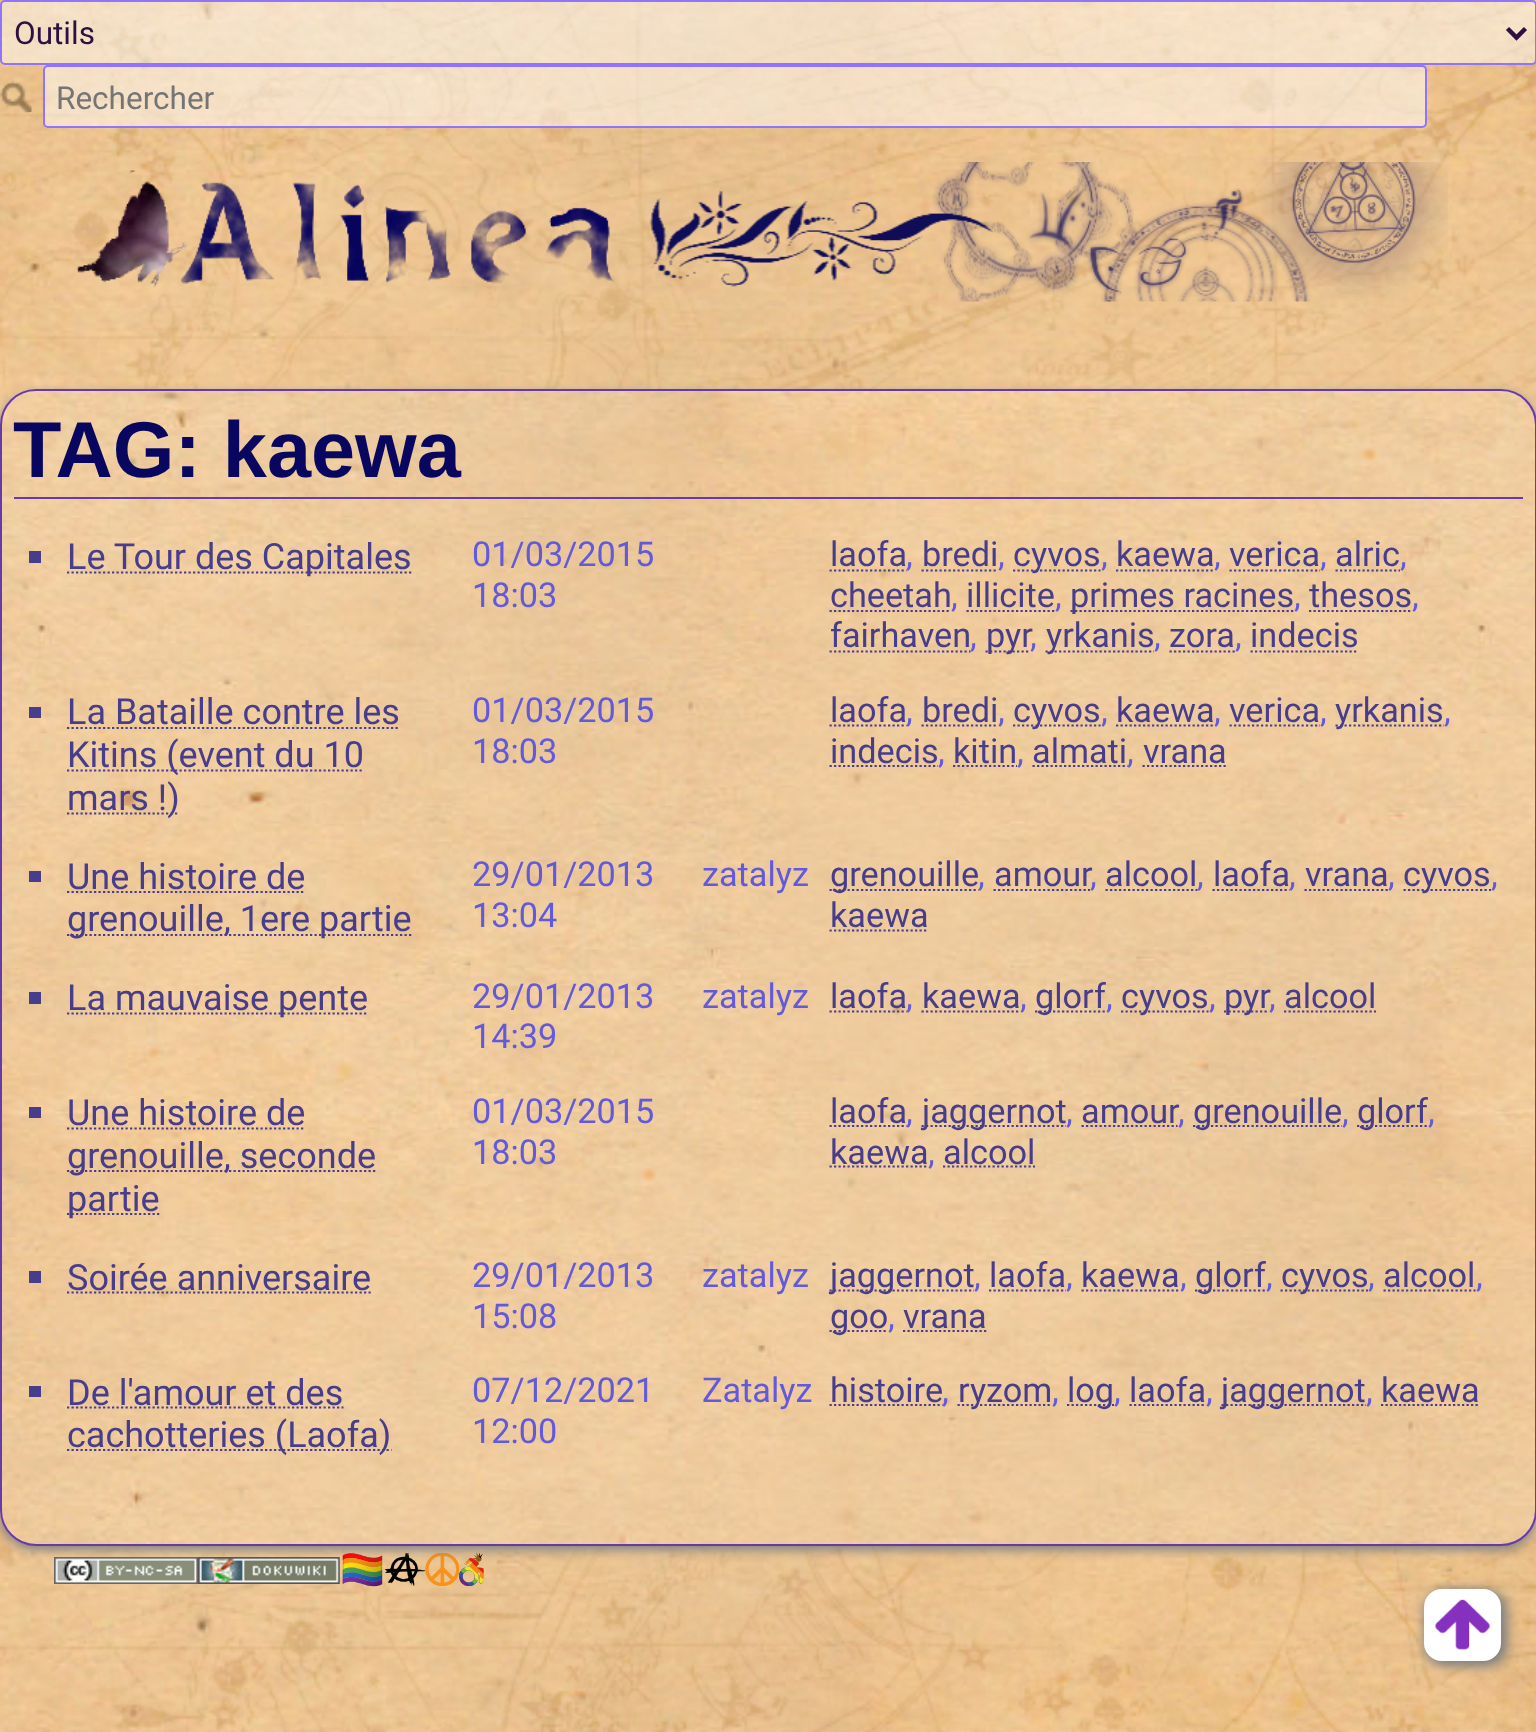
(async () => {
const canvas = document.querySelector("canvas")
canvas.width = 1536
canvas.height = 1732
const c = canvas.getContext("2d")
c.miterLimit = 4
c.fontKerning = "normal"
function T(s,x,y){c.fillText(s,x,y)}
function R(x,y,w,h){c.fillRect(x,y,w,h)}
function Q(x,y,w,h,r){c.beginPath();c.roundRect(x,y,w,h,r);c.fill()}
async function I(src,x,y,w,h){const img=new Image();img.src=src;await img.decode();c.drawImage(img,x,y,w,h)}
let path
c.fillStyle="#fff"
R(0,0,1536,1732)
await I("1.png",0,0,1536,1732)
c.fillStyle="#ffffff80"
c.beginPath()
c.roundRect(1,1,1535,63,4)
c.fill()
c.strokeStyle="#9073ff"
c.lineWidth=2
c.stroke()
path = new Path2D("M1507.5 28.5l9 9l9-9")
c.strokeStyle="#2d1040"
c.lineWidth=4.5
c.stroke(path)
c.font="31.5px Roboto"
c.fillStyle="#2d1040"
T("Outils",14,44)
await I("2.png",0,81,32,32)
c.fillStyle="#ffffff80"
c.beginPath()
c.roundRect(44,66,1382,61,4)
c.fill()
c.strokeStyle="#9073ff"
c.lineWidth=2
c.stroke()
c.fillStyle="#757575"
T("Rechercher",56,109)
await I("3.png",77,162,1371,140)
await I("5.png",54,1557,144,27)
await I("6.png",198,1557,142,27)
await I("7.png",385,1553,40,33)
await I("8.png",425,1553,34,33)
await I("9.png",459,1553,25,33)
c.fillStyle="#808080"
c.filter="blur(5.5px)"
c.beginPath()
c.roundRect(0,394,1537,1156,36)
c.fill()
c.filter="none"
await I("4.png",0,389,1536,1157)
c.beginPath()
c.roundRect(1,390,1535,1155,35)
c.strokeStyle="#6639af"
c.stroke()
c.fillStyle="#6639af"
R(14,497,1509,2)
c.font="bold 79.25px Liberation Sans"
c.fillStyle="#08065e"
T("TAG: kaewa",13,477)
c.fillStyle="#483d8b"
R(29,551,12,12)
path = new Path2D("M67 572.5h344.5")
c.strokeStyle="#483d8b"
c.lineWidth=2.2
c.setLineDash([2.25,2.25])
c.stroke(path)
c.font="36px Roboto"
T("Le Tour des Capitales",67,569)
c.font="34.25px Roboto"
c.fillStyle="#6359db"
T("01/03/2015",472,566)
T("18:03",472,607)
c.fillStyle="#483d8b"
T("laofa",830,566)
path = new Path2D("M829.5 570.5h77")
c.stroke(path)
c.fillStyle="#6359db"
T(",",906,566)
c.fillStyle="#483d8b"
T("bredi",922,566)
path = new Path2D("M921.5 570.5h76.5")
c.stroke(path)
c.fillStyle="#6359db"
T(",",998,566)
path = new Path2D("M1013 570.5h87.5")
c.stroke(path)
c.fillStyle="#483d8b"
T("cyvos",1013,566)
c.fillStyle="#6359db"
T(",",1101,566)
c.fillStyle="#483d8b"
T("kaewa",1116,566)
path = new Path2D("M1116 570.5h98")
c.stroke(path)
c.fillStyle="#6359db"
T(",",1214,566)
c.fillStyle="#483d8b"
T("verica",1229,566)
path = new Path2D("M1229.5 570.5h90.5")
c.stroke(path)
c.fillStyle="#6359db"
T(",",1320,566)
c.fillStyle="#483d8b"
T("alric",1335,566)
path = new Path2D("M1335.5 570.5h64.5")
c.stroke(path)
c.fillStyle="#6359db"
T(",",1400,566)
c.fillStyle="#483d8b"
T("cheetah",830,607)
path = new Path2D("M829.5 611h121.5")
c.stroke(path)
c.fillStyle="#6359db"
T(",",951,607)
c.fillStyle="#483d8b"
T("illicite",966,607)
path = new Path2D("M966.5 611h88.5")
c.stroke(path)
c.fillStyle="#6359db"
T(",",1055,607)
path = new Path2D("M1070.5 611h223.5")
c.stroke(path)
c.fillStyle="#483d8b"
T("primes racines",1070,607)
c.fillStyle="#6359db"
T(",",1294,607)
c.fillStyle="#483d8b"
T("thesos",1309,607)
path = new Path2D("M1309 611h103")
c.stroke(path)
c.fillStyle="#6359db"
T(",",1412,607)
c.fillStyle="#483d8b"
T("fairhaven",830,647)
path = new Path2D("M829.5 651.5h141")
c.stroke(path)
c.fillStyle="#6359db"
T(",",970,647)
path = new Path2D("M985.5 651.5h45")
c.stroke(path)
c.fillStyle="#483d8b"
T("pyr",986,647)
c.fillStyle="#6359db"
T(",",1030,647)
path = new Path2D("M1045.5 651.5h108.5")
c.stroke(path)
c.fillStyle="#483d8b"
T("yrkanis",1046,647)
c.fillStyle="#6359db"
T(",",1154,647)
c.fillStyle="#483d8b"
T("zora",1169,647)
path = new Path2D("M1169.5 651.5h65.5")
c.stroke(path)
c.fillStyle="#6359db"
T(",",1235,647)
c.fillStyle="#483d8b"
T("indecis",1250,647)
path = new Path2D("M1250.5 651.5h108")
c.stroke(path)
R(29,707,12,11)
c.font="36px Roboto"
T("La Bataille contre les",67,724)
path = new Path2D("M67 728h333")
c.stroke(path)
path = new Path2D("M67 770.5h297")
c.stroke(path)
T("Kitins (event du 10",67,767)
path = new Path2D("M67 813.5h112.5")
c.stroke(path)
T("mars !)",67,810)
c.font="34.25px Roboto"
c.fillStyle="#6359db"
T("01/03/2015",472,722)
T("18:03",472,763)
c.fillStyle="#483d8b"
T("laofa",830,722)
path = new Path2D("M829.5 725.5h77")
c.stroke(path)
c.fillStyle="#6359db"
T(",",906,722)
c.fillStyle="#483d8b"
T("bredi",922,722)
path = new Path2D("M921.5 725.5h76.5")
c.stroke(path)
c.fillStyle="#6359db"
T(",",998,722)
path = new Path2D("M1013 725.5h87.5")
c.stroke(path)
c.fillStyle="#483d8b"
T("cyvos",1013,722)
c.fillStyle="#6359db"
T(",",1101,722)
c.fillStyle="#483d8b"
T("kaewa",1116,722)
path = new Path2D("M1116 725.5h98")
c.stroke(path)
c.fillStyle="#6359db"
T(",",1214,722)
c.fillStyle="#483d8b"
T("verica",1229,722)
path = new Path2D("M1229.5 725.5h90.5")
c.stroke(path)
c.fillStyle="#6359db"
T(",",1320,722)
path = new Path2D("M1335.5 725.5h108.5")
c.stroke(path)
c.fillStyle="#483d8b"
T("yrkanis",1335,722)
c.fillStyle="#6359db"
T(",",1444,722)
c.fillStyle="#483d8b"
T("indecis",830,763)
path = new Path2D("M829.5 766h108.5")
c.stroke(path)
c.fillStyle="#6359db"
T(",",938,763)
c.fillStyle="#483d8b"
T("kitin",953,763)
path = new Path2D("M953 766h64")
c.stroke(path)
c.fillStyle="#6359db"
T(",",1017,763)
c.fillStyle="#483d8b"
T("almati",1032,763)
path = new Path2D("M1032.5 766h95")
c.stroke(path)
c.fillStyle="#6359db"
T(",",1127,763)
c.fillStyle="#483d8b"
T("vrana",1143,763)
path = new Path2D("M1142.5 766h83.5")
c.stroke(path)
R(29,871,12,11)
c.font="36px Roboto"
T("Une histoire de",67,889)
path = new Path2D("M67 892h238.5")
c.stroke(path)
path = new Path2D("M67 935h344.5")
c.stroke(path)
T("grenouille, 1ere partie",67,931)
c.font="34.25px Roboto"
c.fillStyle="#6359db"
T("29/01/2013",472,886)
T("13:04",472,927)
T("zatalyz",702,886)
path = new Path2D("M829.5 890h149")
c.stroke(path)
c.fillStyle="#483d8b"
T("grenouille",830,886)
c.fillStyle="#6359db"
T(",",978,886)
c.fillStyle="#483d8b"
T("amour",994,886)
path = new Path2D("M993.5 890h96.5")
c.stroke(path)
c.fillStyle="#6359db"
T(",",1090,886)
c.fillStyle="#483d8b"
T("alcool",1105,886)
path = new Path2D("M1105.5 890h92")
c.stroke(path)
c.fillStyle="#6359db"
T(",",1197,886)
c.fillStyle="#483d8b"
T("laofa",1213,886)
path = new Path2D("M1212.5 890h77")
c.stroke(path)
c.fillStyle="#6359db"
T(",",1289,886)
c.fillStyle="#483d8b"
T("vrana",1305,886)
path = new Path2D("M1304.5 890h83.5")
c.stroke(path)
c.fillStyle="#6359db"
T(",",1388,886)
path = new Path2D("M1403.5 890h87.5")
c.stroke(path)
c.fillStyle="#483d8b"
T("cyvos",1403,886)
c.fillStyle="#6359db"
T(",",1491,886)
c.fillStyle="#483d8b"
T("kaewa",830,927)
path = new Path2D("M829.5 930.5h98.5")
c.stroke(path)
R(29,992,12,12)
path = new Path2D("M67 1013.5h301")
c.stroke(path)
c.font="36px Roboto"
T("La mauvaise pente",67,1010)
c.font="34.25px Roboto"
c.fillStyle="#6359db"
T("29/01/2013",472,1008)
T("14:39",472,1048)
T("zatalyz",702,1008)
c.fillStyle="#483d8b"
T("laofa",830,1008)
path = new Path2D("M829.5 1011.5h77")
c.stroke(path)
c.fillStyle="#6359db"
T(",",906,1008)
c.fillStyle="#483d8b"
T("kaewa",922,1008)
path = new Path2D("M921.5 1011.5h98.5")
c.stroke(path)
c.fillStyle="#6359db"
T(",",1020,1008)
path = new Path2D("M1035 1011.5h71")
c.stroke(path)
c.fillStyle="#483d8b"
T("glorf",1035,1008)
c.fillStyle="#6359db"
T(",",1106,1008)
path = new Path2D("M1121 1011.5h87.5")
c.stroke(path)
c.fillStyle="#483d8b"
T("cyvos",1121,1008)
c.fillStyle="#6359db"
T(",",1209,1008)
path = new Path2D("M1224 1011.5h44.5")
c.stroke(path)
c.fillStyle="#483d8b"
T("pyr",1224,1008)
c.fillStyle="#6359db"
T(",",1269,1008)
c.fillStyle="#483d8b"
T("alcool",1284,1008)
path = new Path2D("M1284 1011.5h92")
c.stroke(path)
R(29,1107,12,11)
c.font="36px Roboto"
T("Une histoire de",67,1125)
path = new Path2D("M67 1128.5h238.5")
c.stroke(path)
path = new Path2D("M67 1171h309")
c.stroke(path)
T("grenouille, seconde",67,1168)
path = new Path2D("M67 1214h92.5")
c.stroke(path)
T("partie",67,1211)
c.font="34.25px Roboto"
c.fillStyle="#6359db"
T("01/03/2015",472,1123)
T("18:03",472,1164)
c.fillStyle="#483d8b"
T("laofa",830,1123)
path = new Path2D("M829.5 1126h77")
c.stroke(path)
c.fillStyle="#6359db"
T(",",906,1123)
path = new Path2D("M921.5 1126h144.5")
c.stroke(path)
c.fillStyle="#483d8b"
T("jaggernot",922,1123)
c.fillStyle="#6359db"
T(",",1066,1123)
c.fillStyle="#483d8b"
T("amour",1081,1123)
path = new Path2D("M1081.5 1126h96")
c.stroke(path)
c.fillStyle="#6359db"
T(",",1178,1123)
path = new Path2D("M1193 1126h149")
c.stroke(path)
c.fillStyle="#483d8b"
T("grenouille",1193,1123)
c.fillStyle="#6359db"
T(",",1342,1123)
path = new Path2D("M1357 1126h70.5")
c.stroke(path)
c.fillStyle="#483d8b"
T("glorf",1357,1123)
c.fillStyle="#6359db"
T(",",1428,1123)
c.fillStyle="#483d8b"
T("kaewa",830,1164)
path = new Path2D("M829.5 1166.5h98.5")
c.stroke(path)
c.fillStyle="#6359db"
T(",",928,1164)
c.fillStyle="#483d8b"
T("alcool",943,1164)
path = new Path2D("M943 1166.5h92")
c.stroke(path)
R(29,1271,12,12)
c.font="36px Roboto"
T("Soirée anniversaire",67,1290)
path = new Path2D("M67 1292.5h304")
c.stroke(path)
c.font="34.25px Roboto"
c.fillStyle="#6359db"
T("29/01/2013",472,1287)
T("15:08",472,1328)
T("zatalyz",702,1287)
path = new Path2D("M829.5 1290.5h144.5")
c.stroke(path)
c.fillStyle="#483d8b"
T("jaggernot",830,1287)
c.fillStyle="#6359db"
T(",",974,1287)
c.fillStyle="#483d8b"
T("laofa",989,1287)
path = new Path2D("M989 1290.5h77")
c.stroke(path)
c.fillStyle="#6359db"
T(",",1066,1287)
c.fillStyle="#483d8b"
T("kaewa",1081,1287)
path = new Path2D("M1081.5 1290.5h98")
c.stroke(path)
c.fillStyle="#6359db"
T(",",1180,1287)
path = new Path2D("M1195 1290.5h70.5")
c.stroke(path)
c.fillStyle="#483d8b"
T("glorf",1195,1287)
c.fillStyle="#6359db"
T(",",1266,1287)
path = new Path2D("M1280.5 1290.5h87.5")
c.stroke(path)
c.fillStyle="#483d8b"
T("cyvos",1281,1287)
c.fillStyle="#6359db"
T(",",1368,1287)
c.fillStyle="#483d8b"
T("alcool",1383,1287)
path = new Path2D("M1383.5 1290.5h92")
c.stroke(path)
c.fillStyle="#6359db"
T(",",1476,1287)
path = new Path2D("M829.5 1331h58.5")
c.stroke(path)
c.fillStyle="#483d8b"
T("goo",830,1328)
c.fillStyle="#6359db"
T(",",888,1328)
c.fillStyle="#483d8b"
T("vrana",903,1328)
path = new Path2D("M903 1331h83.5")
c.stroke(path)
R(29,1386,12,11)
c.font="36px Roboto"
T("De l'amour et des",67,1405)
path = new Path2D("M67 1407.5h276.5")
c.stroke(path)
path = new Path2D("M67 1450h324.5")
c.stroke(path)
T("cachotteries (Laofa)",67,1447)
c.font="34.25px Roboto"
c.fillStyle="#6359db"
T("07/12/2021",472,1402)
T("12:00",472,1443)
T("Zatalyz",702,1402)
c.fillStyle="#483d8b"
T("histoire",830,1402)
path = new Path2D("M829.5 1405h113")
c.stroke(path)
c.fillStyle="#6359db"
T(",",942,1402)
path = new Path2D("M957.5 1405h94.5")
c.stroke(path)
c.fillStyle="#483d8b"
T("ryzom",958,1402)
c.fillStyle="#6359db"
T(",",1052,1402)
path = new Path2D("M1067 1405h47")
c.stroke(path)
c.fillStyle="#483d8b"
T("log",1067,1402)
c.fillStyle="#6359db"
T(",",1114,1402)
c.fillStyle="#483d8b"
T("laofa",1129,1402)
path = new Path2D("M1129.5 1405h76.5")
c.stroke(path)
c.fillStyle="#6359db"
T(",",1206,1402)
path = new Path2D("M1221.5 1405h144.5")
c.stroke(path)
c.fillStyle="#483d8b"
T("jaggernot",1221,1402)
c.fillStyle="#6359db"
T(",",1366,1402)
c.fillStyle="#483d8b"
T("kaewa",1381,1402)
path = new Path2D("M1381 1405h98.5")
c.stroke(path)
c.font="36px Noto Color Emoji"
T("🏳️‍🌈",340,1582)
c.fillStyle="#808080"
c.filter="blur(5.5px)"
c.beginPath()
c.roundRect(1424,1589,84,78,23)
c.fill()
c.filter="none"
c.fillStyle="#fff"
Q(1424,1589,77,72,18)
await I("10.png",1435,1599,55,51)
})()
